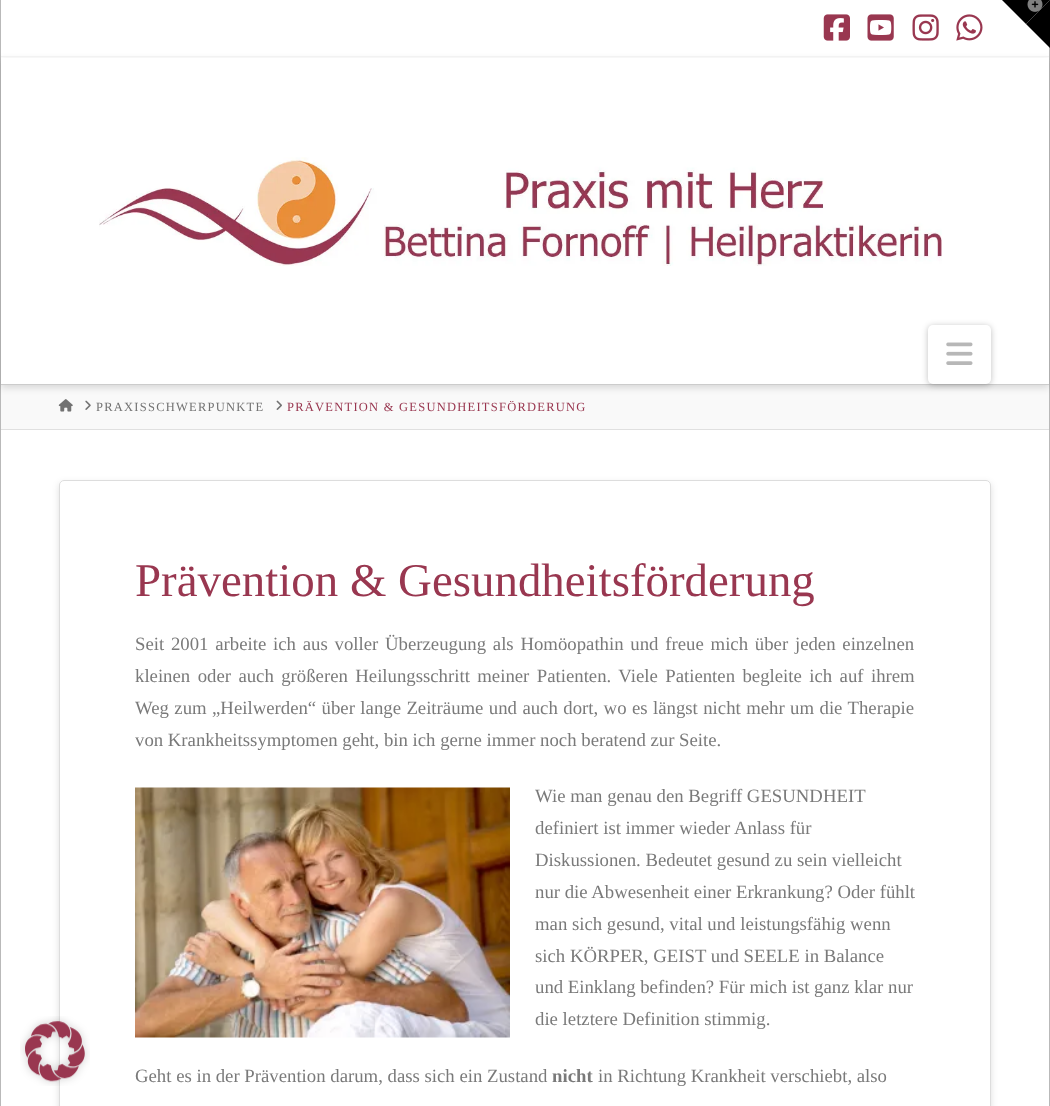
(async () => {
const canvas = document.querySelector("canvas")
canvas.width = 1050
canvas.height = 1106
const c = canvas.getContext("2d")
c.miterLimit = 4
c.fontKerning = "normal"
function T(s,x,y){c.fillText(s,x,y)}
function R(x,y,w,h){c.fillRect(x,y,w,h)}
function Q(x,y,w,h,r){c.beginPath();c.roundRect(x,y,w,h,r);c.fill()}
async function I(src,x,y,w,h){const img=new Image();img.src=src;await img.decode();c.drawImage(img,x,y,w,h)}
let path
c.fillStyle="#fff"
R(0,0,1050,1106)
c.save()
path = new Path2D("M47 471h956v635h-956zm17 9h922c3 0 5 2 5 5v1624c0 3-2 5-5 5h-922c-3 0-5-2-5-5v-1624c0-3 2-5 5-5z")
c.clip(path,"evenodd")
c.fillStyle="#00000021"
c.filter="blur(3.5px)"
c.beginPath()
c.roundRect(59,483,932,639,5)
c.fill()
c.filter="none"
c.restore()
c.beginPath()
c.roundRect(59.5,480.5,931,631,4.5)
c.strokeStyle="#ddd"
c.stroke()
await I("1.png",20,1016,70,70)
c.fillStyle="#b9b9b9"
R(1049,0,1,1106)
c.fillStyle="#000"
path = new Path2D("M1002 0h48l-24 24z")
c.fill(path)
path = new Path2D("M1050 0v48l-24-24z")
c.fill(path)
await I("2.png",1027,0,16,12)
c.fillStyle="#b9b9b9"
R(0,0,1,1106)
c.fillStyle="#f9f9f9"
R(1,385,1048,44)
await I("9.png",58,399,15,13)
c.fillStyle="#00000021"
c.filter="blur(3.5px)"
c.beginPath()
c.rect(1,60,1048,328)
c.fill()
c.filter="none"
c.fillStyle="#f2f2f2"
R(1,56,1048,1)
await I("3.png",823,14,27,27)
await I("4.png",867,14,27,27)
await I("5.png",912,14,27,27)
await I("6.png",956,14,27,27)
c.fillStyle="#fff"
R(1,58,1048,326)
c.fillStyle="#ccc"
R(1,384,1048,1)
await I("7.png",99,157,843,109)
c.fillStyle="#00000040"
c.filter="blur(3px)"
c.beginPath()
c.roundRect(928,326,63,59,5)
c.fill()
c.filter="none"
c.fillStyle="#fff"
Q(928,325,63,59,5)
await I("8.png",946,342,27,23)
c.fillStyle="#e0e0e0"
R(1,429,1048,1)
await I("10.png",85,400,6,10)
c.letterSpacing="1.25px"
c.font="12.5px Liberation Serif"
c.fillStyle="#727272"
T("PRAXISSCHWERPUNKTE",96,411)
await I("11.png",276,400,6,10)
c.fillStyle="#993750"
T("PRÄVENTION & GESUNDHEITSFÖRDERUNG",287,411)
c.letterSpacing="0px"
c.font="46.9px Liberation Serif"
T("Prävention & Gesundheitsförderung",135,596)
c.wordSpacing="2.1px"
c.font="18.75px Liberation Serif"
c.fillStyle="#7a7a7a"
T("Seit 2001 arbeite ich aus voller Überzeugung als Homöopathin und freue mich über jeden einzelnen",135,650)
c.wordSpacing="2.75px"
T("kleinen oder auch größeren Heilungsschritt meiner Patienten. Viele Patienten begleite ich auf ihrem",135,682)
c.wordSpacing="0.75px"
T("Weg zum „Heilwerden“ über lange Zeiträume und auch dort, wo es längst nicht mehr um die Therapie",135,714)
c.wordSpacing="0px"
T("von Krankheitssymptomen geht, bin ich gerne immer noch beratend zur Seite.",135,746)
await I("12.png",135,787,375,251)
T("Wie man genau den Begriff GESUNDHEIT",535,802)
T("definiert ist immer wieder Anlass für",535,834)
T("Diskussionen. Bedeutet gesund zu sein vielleicht",535,866)
T("nur die Abwesenheit einer Erkrankung? Oder fühlt",535,898)
T("man sich gesund, vital und leistungsfähig wenn",535,930)
T("sich KÖRPER, GEIST und SEELE in Balance",535,962)
T("und Einklang befinden? Für mich ist ganz klar nur",535,993)
T("die letztere Definition stimmig.",535,1025)
T("Geht es in der Prävention darum, dass sich ein Zustand",135,1082)
c.font="bold 18.75px Liberation Serif"
T("nicht",552,1082)
c.font="18.75px Liberation Serif"
T("in Richtung Krankheit verschiebt, also",598,1082)
})()
